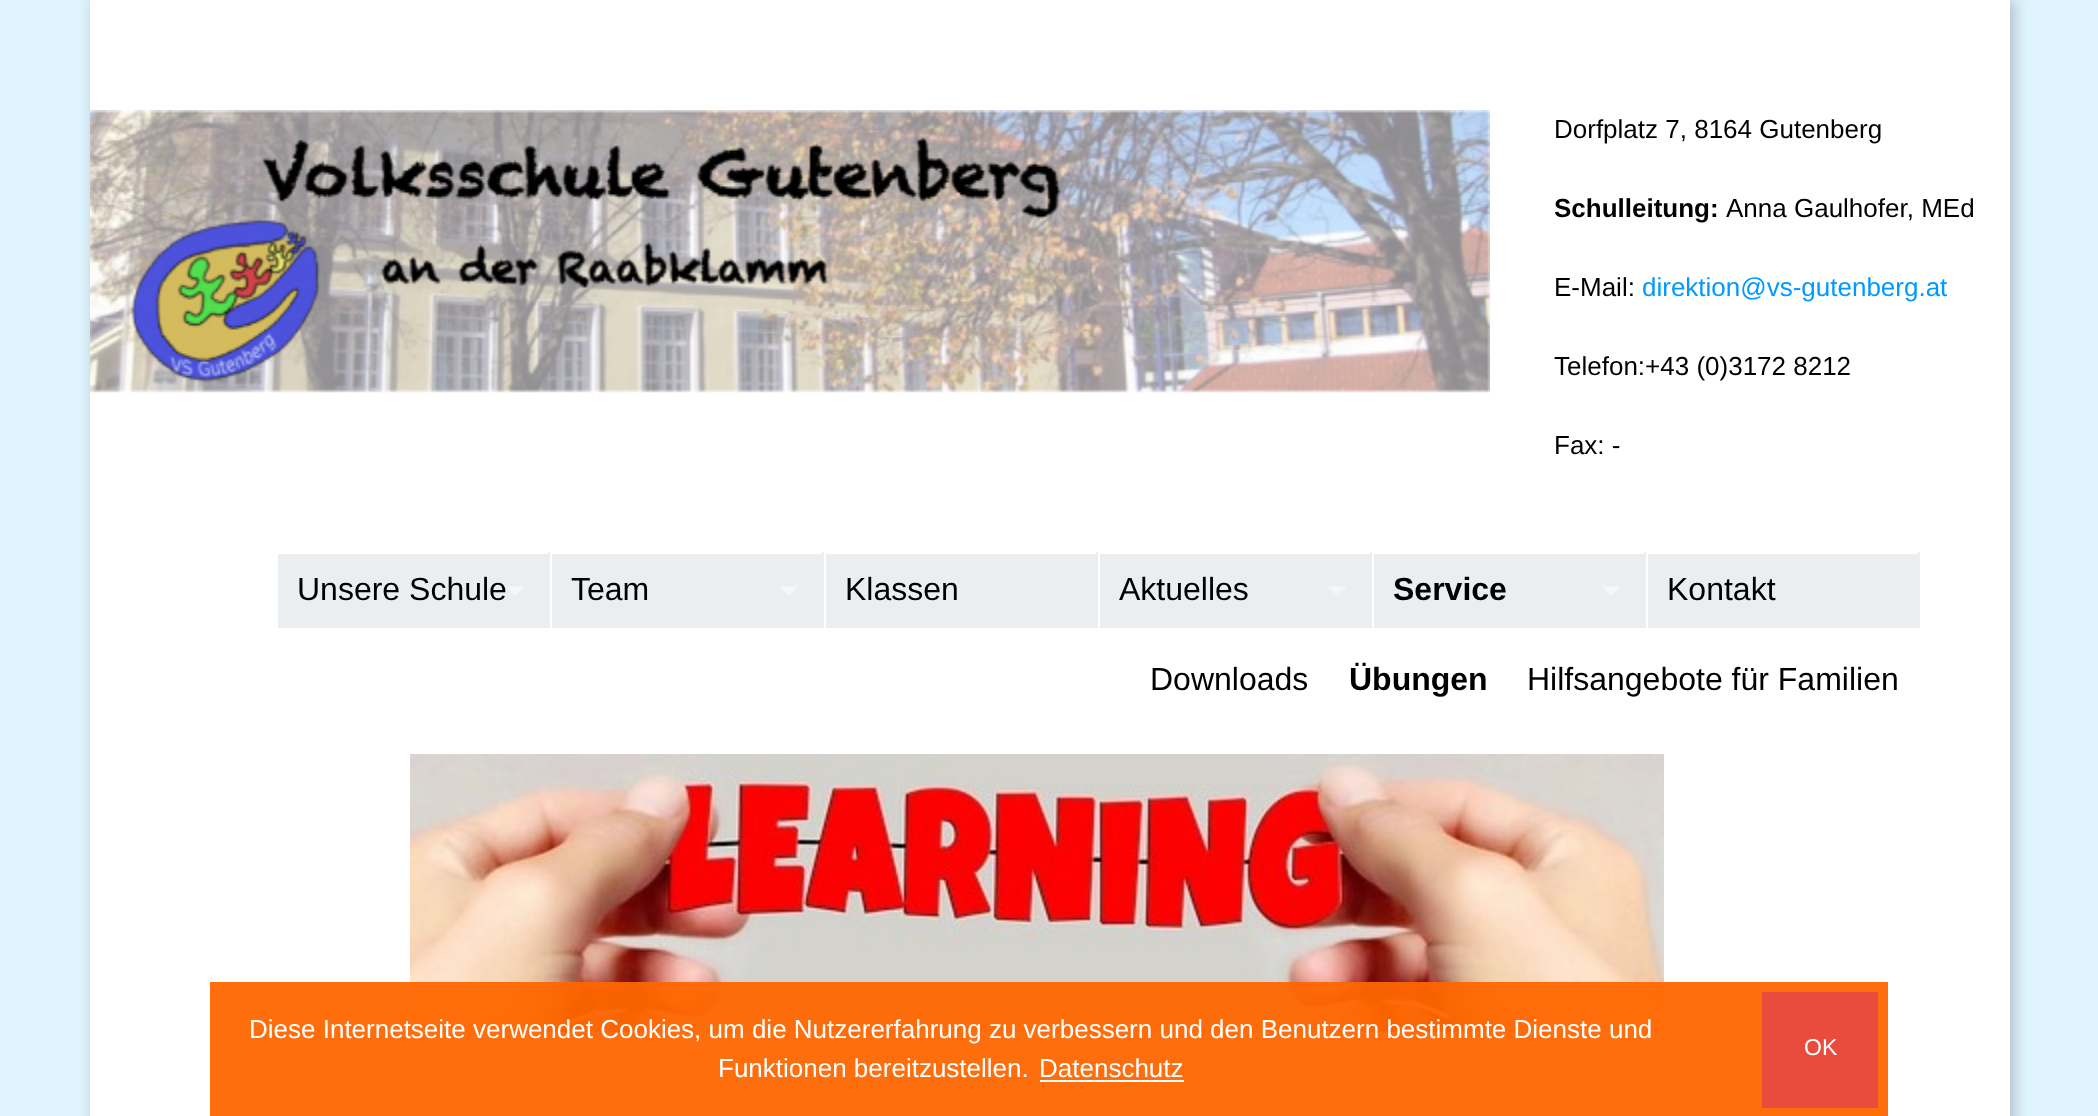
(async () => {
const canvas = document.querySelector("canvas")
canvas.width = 2098
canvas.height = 1116
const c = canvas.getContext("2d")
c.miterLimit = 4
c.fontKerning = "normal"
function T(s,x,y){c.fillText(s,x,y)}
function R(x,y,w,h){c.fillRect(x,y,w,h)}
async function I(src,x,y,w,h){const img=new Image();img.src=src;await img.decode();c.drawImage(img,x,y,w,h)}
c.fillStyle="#def5ff"
R(0,0,2098,1116)
c.fillStyle="#b2b9c1"
c.filter="blur(8px)"
c.beginPath()
c.rect(94,0,1920,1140)
c.fill()
c.filter="none"
c.fillStyle="#fff"
R(90,0,1920,1116)
await I("1.png",90,110,1400,283)
c.font="26px Liberation Sans"
c.fillStyle="#000"
T("Dorfplatz 7, 8164 Gutenberg",1554,138)
c.font="bold 26px Liberation Sans"
T("Schulleitung:",1554,217)
c.font="26px Liberation Sans"
T("Anna Gaulhofer, MEd",1726,217)
T("E-Mail:",1554,296)
c.fillStyle="#09f"
T("direktion@vs-gutenberg.at",1642,296)
c.fillStyle="#000"
T("Telefon:+43 (0)3172 8212",1554,375)
T("Fax: -",1554,454)
c.fillStyle="#ebeef0"
R(278,554,270,74)
R(548,552,2,76)
c.font="32px Liberation Sans"
c.fillStyle="#000"
T("Unsere Schule",297,600)
await I("2.png",506,586,18,10)
c.fillStyle="#ebeef0"
R(552,554,270,74)
R(822,552,2,76)
c.fillStyle="#000"
T("Team",571,600)
await I("2.png",780,586,18,10)
c.fillStyle="#ebeef0"
R(826,554,270,74)
R(1096,552,2,76)
c.fillStyle="#000"
T("Klassen",845,600)
c.fillStyle="#ebeef0"
R(1100,554,270,74)
R(1370,552,2,76)
c.fillStyle="#000"
T("Aktuelles",1119,600)
await I("2.png",1328,586,18,10)
c.fillStyle="#ebeef0"
R(1374,554,270,74)
R(1644,552,2,76)
c.font="bold 32px Liberation Sans"
c.fillStyle="#000"
T("Service",1393,600)
await I("2.png",1602,586,18,10)
c.fillStyle="#ebeef0"
R(1648,554,270,74)
R(1918,552,2,76)
c.font="32px Liberation Sans"
c.fillStyle="#000"
T("Kontakt",1667,600)
T("Downloads",1150,690)
c.font="bold 32px Liberation Sans"
T("Übungen",1349,690)
c.font="32px Liberation Sans"
T("Hilfsangebote für Familien",1527,690)
await I("3.png",410,754,1254,278)
c.fillStyle="#ff6600f2"
R(210,982,1678,134)
c.font="26px Liberation Sans"
c.fillStyle="#fff"
T("Diese Internetseite verwendet Cookies, um die Nutzererfahrung zu verbessern und den Benutzern bestimmte Dienste und",249,1038)
c.fillStyle="#e74c3c"
R(1762,992,116,116)
c.font="23px Liberation Sans"
c.fillStyle="#fff"
T("OK",1804,1055)
c.font="26px Liberation Sans"
T("Funktionen bereitzustellen.",718,1077)
T("Datenschutz",1039,1077)
R(1040,1080,144,2)
})()
